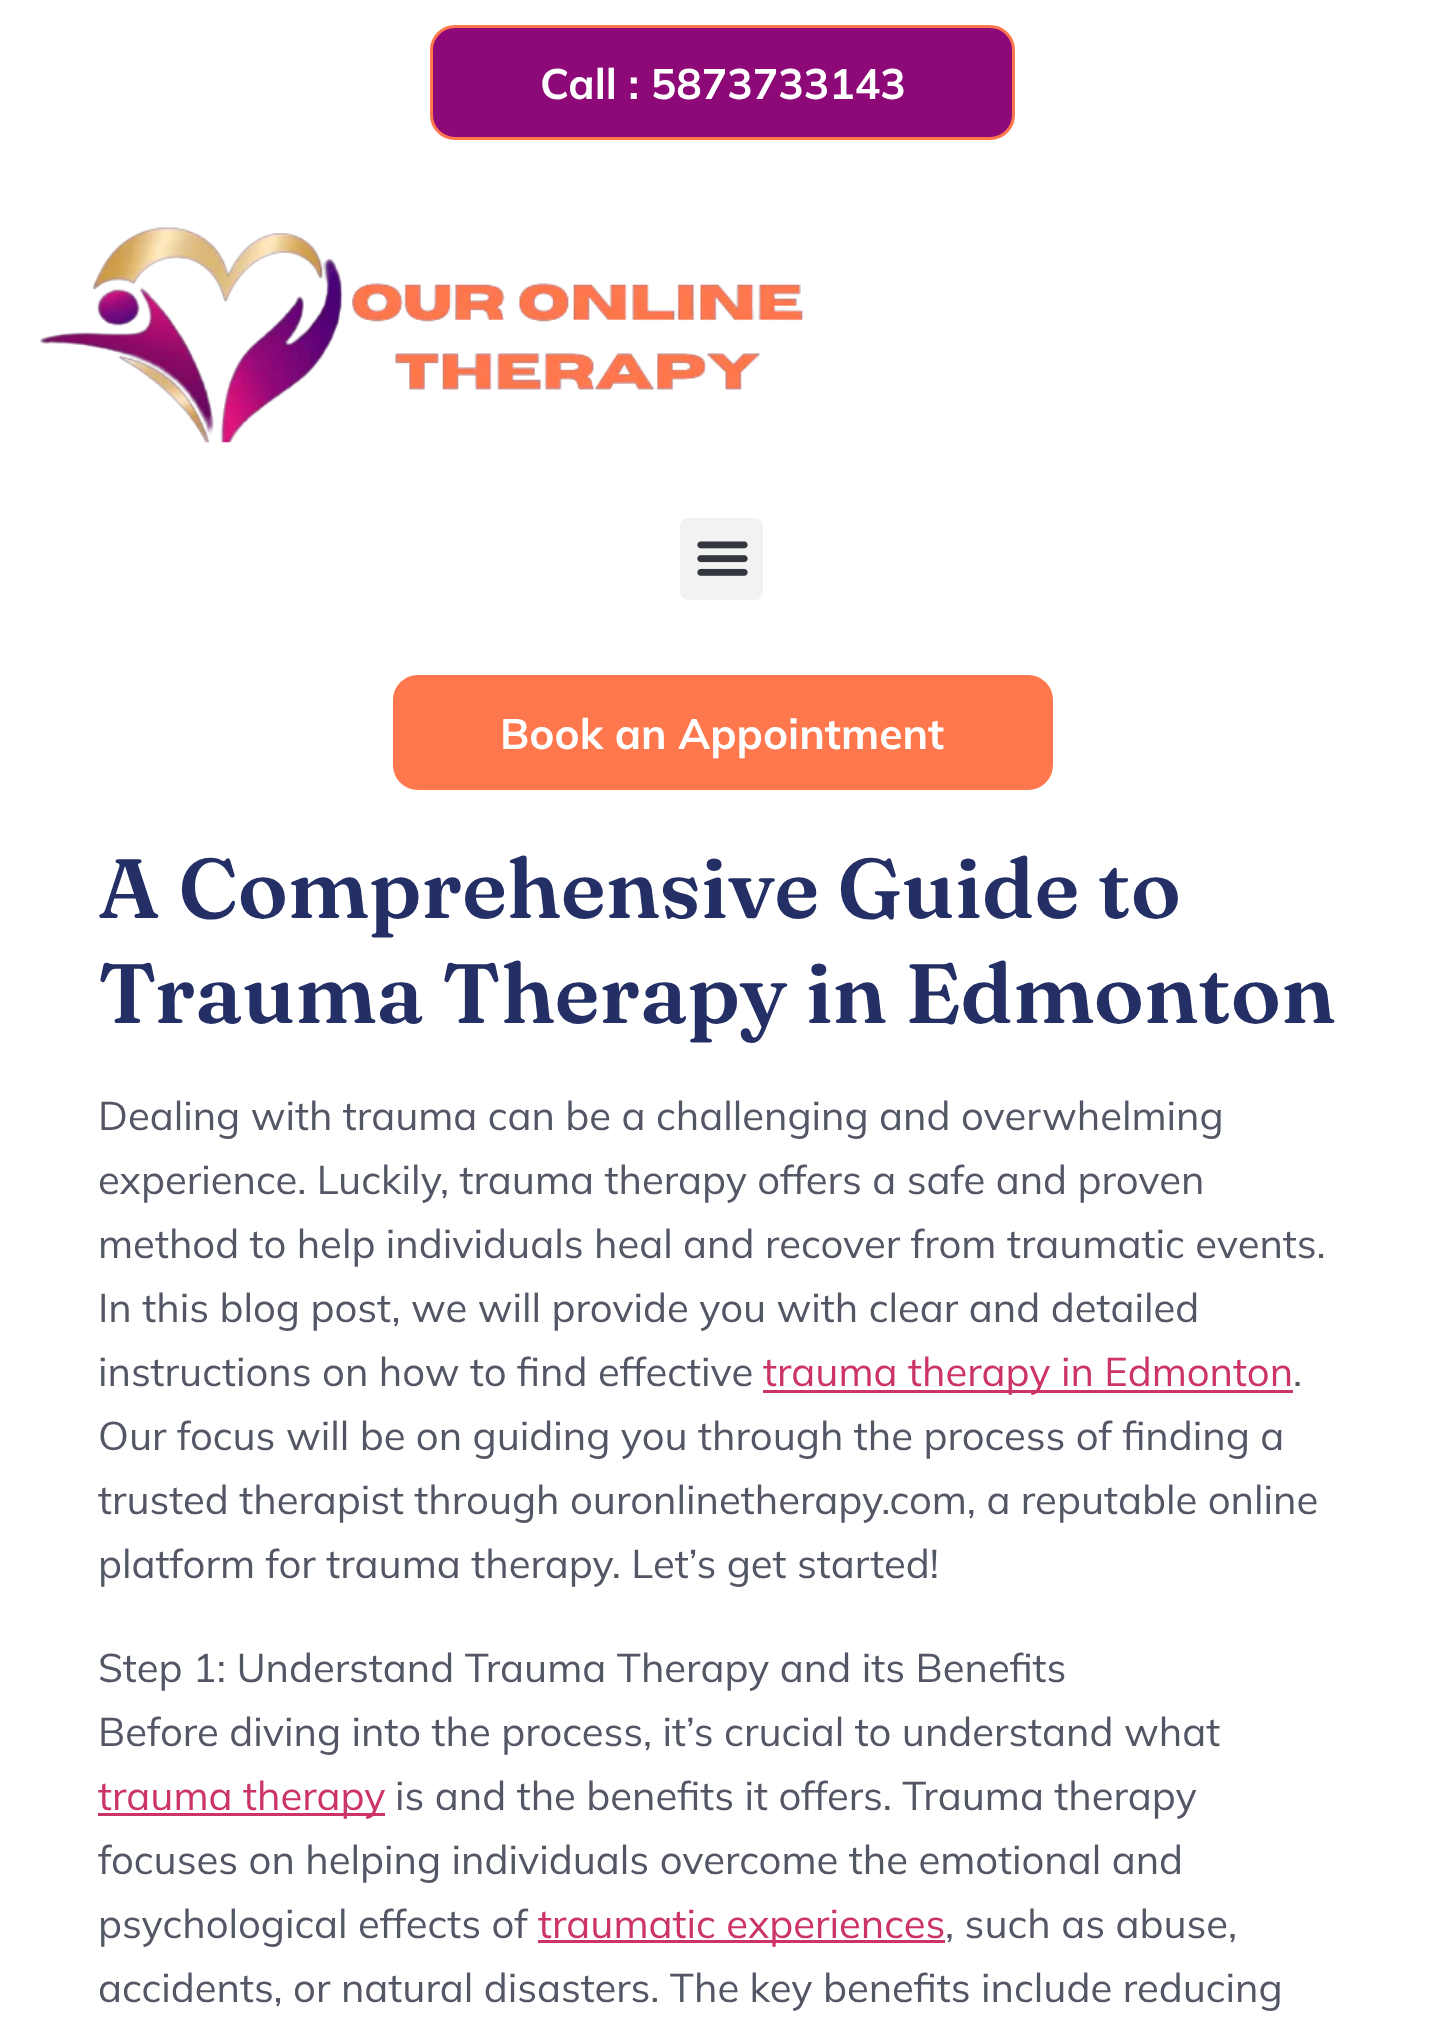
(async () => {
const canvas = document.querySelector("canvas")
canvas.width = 1444
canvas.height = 2031
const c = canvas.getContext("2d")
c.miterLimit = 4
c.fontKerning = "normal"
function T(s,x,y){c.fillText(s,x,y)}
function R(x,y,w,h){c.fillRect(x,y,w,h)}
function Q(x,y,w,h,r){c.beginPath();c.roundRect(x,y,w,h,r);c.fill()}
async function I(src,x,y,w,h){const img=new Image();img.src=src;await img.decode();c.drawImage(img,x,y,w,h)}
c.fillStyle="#fff"
R(0,0,1444,2031)
c.fillStyle="#8e0978"
c.beginPath()
c.roundRect(431.5,26.5,582,112,23.5)
c.fill()
c.strokeStyle="#ff774c"
c.lineWidth=3
c.stroke()
c.font="bold 42.5px Mulish"
c.fillStyle="#fff"
T("Call : 5873733143",540,99)
await I("1.png",40,226,763,217)
c.fillStyle="#f2f2f2"
Q(680,518,83,82,8)
await I("2.png",697,541,51,35)
c.fillStyle="#ff774c"
c.beginPath()
c.roundRect(394.5,676.5,657,112,23.5)
c.fill()
c.stroke()
c.fillStyle="#fff"
T("Book an Appointment",500,749)
c.font="600 84px Fraunces"
c.fillStyle="#242f65"
T("A Comprehensive Guide to",98,918)
T("Trauma Therapy in Edmonton",98,1023)
c.font="40px Mulish"
c.fillStyle="#525665"
T("Dealing with trauma can be a challenging and overwhelming",98,1130)
T("experience. Luckily, trauma therapy offers a safe and proven",98,1194)
T("method to help individuals heal and recover from traumatic events.",98,1258)
T("In this blog post, we will provide you with clear and detailed",98,1322)
T("instructions on how to find effective",98,1386)
c.fillStyle="#c36"
R(763,1390,530,3)
T("trauma therapy in Edmonton",763,1386)
c.fillStyle="#525665"
T(".",1293,1386)
T("Our focus will be on guiding you through the process of finding a",98,1450)
T("trusted therapist through ouronlinetherapy.com, a reputable online",98,1514)
T("platform for trauma therapy. Let’s get started!",98,1578)
T("Step 1: Understand Trauma Therapy and its Benefits",98,1682)
T("Before diving into the process, it’s crucial to understand what",98,1746)
c.fillStyle="#c36"
R(98,1813,287,3)
T("trauma therapy",98,1810)
c.fillStyle="#525665"
T("is and the benefits it offers. Trauma therapy",395,1810)
T("focuses on helping individuals overcome the emotional and",98,1874)
T("psychological effects of",98,1938)
c.fillStyle="#c36"
R(538,1940,407,3)
T("traumatic experiences",538,1938)
c.fillStyle="#525665"
T(", such as abuse,",945,1938)
T("accidents, or natural disasters. The key benefits include reducing",98,2002)
})()
